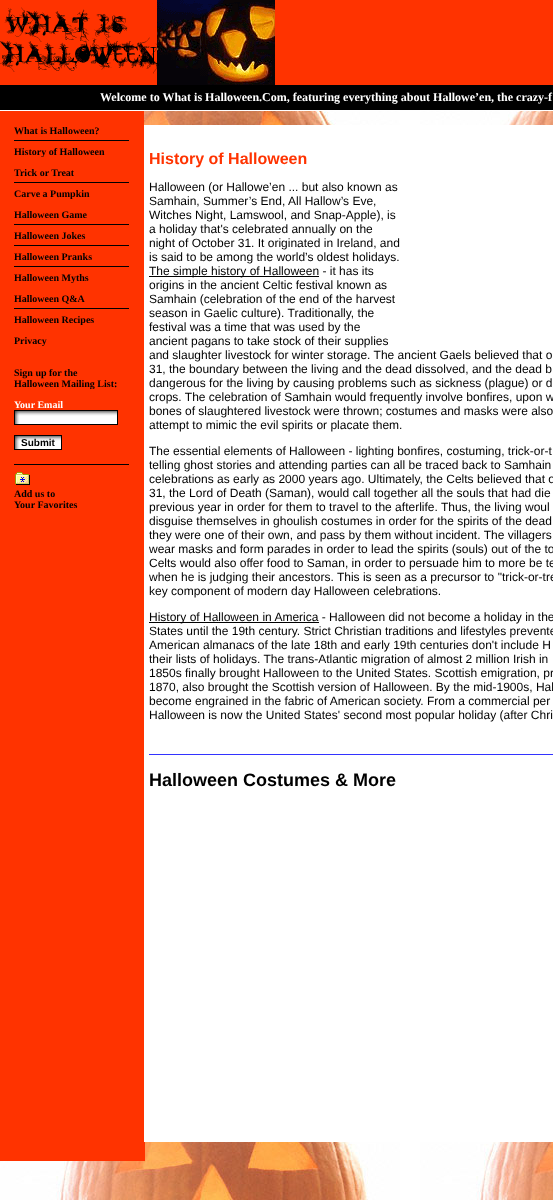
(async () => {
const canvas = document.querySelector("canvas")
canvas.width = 553
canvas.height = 1200
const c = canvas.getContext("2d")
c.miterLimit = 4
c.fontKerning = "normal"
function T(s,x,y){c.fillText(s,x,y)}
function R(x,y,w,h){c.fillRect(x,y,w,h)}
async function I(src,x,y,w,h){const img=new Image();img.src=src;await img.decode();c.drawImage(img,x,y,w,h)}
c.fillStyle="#fff"
R(0,0,553,1200)
await I("1.png",0,111,553,1089)
c.fillStyle="#f30"
R(275,0,278,85)
await I("2.png",0,0,275,85)
c.fillStyle="#000"
R(0,85,553,25)
c.font="bold 12px Liberation Serif"
c.fillStyle="#fff"
T("Welcome to What is Halloween.Com, featuring everything about Hallowe’en, the crazy-f",100,101)
c.fillStyle="#f30"
R(0,111,144,14)
R(0,125,144,1017)
c.fillStyle="#fff"
R(144,125,409,1017)
c.font="bold 10px Liberation Serif"
c.fillStyle="#000"
T("What is Halloween?",14,134)
R(14,140,115,1)
T("History of Halloween",14,155)
c.fillStyle="#f30"
R(41,157,2,1)
c.fillStyle="#000"
T("Trick or Treat",14,176)
R(14,182,115,1)
T("Carve a Pumpkin",14,197)
c.fillStyle="#f30"
R(70,199,3,1)
c.fillStyle="#000"
T("Halloween Game",14,218)
R(14,224,115,1)
T("Halloween Jokes",14,239)
R(14,245,115,1)
T("Halloween Pranks",14,260)
R(14,266,115,1)
T("Halloween Myths",14,281)
c.fillStyle="#f30"
R(71,283,2,1)
c.fillStyle="#000"
T("Halloween Q&A",14,302)
R(14,308,115,1)
T("Halloween Recipes",14,323)
c.fillStyle="#f30"
R(80,325,4,1)
c.fillStyle="#000"
T("Privacy",14,344)
c.fillStyle="#f30"
R(42,346,2,1)
c.fillStyle="#000"
T("Sign up for the",14,376)
T("Halloween Mailing List:",14,387)
c.fillStyle="#f30"
R(91,389,3,1)
c.fillStyle="#fff"
T("Your Email",14,408)
await I("3.png",15,411,102,13)
c.strokeStyle="#000"
c.strokeRect(14.5,410.5,103,14)
await I("4.png",15,436,46,13)
c.strokeRect(14.5,435.5,47,14)
c.font="bold 10px Liberation Sans"
c.fillStyle="#000"
T("Submit",21,446)
R(14,464,115,1)
await I("5.png",15,472,15,13)
c.font="bold 10px Liberation Serif"
T("Add us to",14,497)
T("Your Favorites",14,508)
c.font="bold 16px Liberation Sans"
c.fillStyle="#f30"
T("History of Halloween",149,164)
c.font="12px Liberation Sans"
c.fillStyle="#000"
T("Halloween (or Hallowe’en ... but also known as",149,191)
T("Samhain, Summer’s End, All Hallow’s Eve,",149,205)
T("Witches Night, Lamswool, and Snap-Apple), is",149,219)
T("a holiday that's celebrated annually on the",149,233)
T("night of October 31. It originated in Ireland, and",149,247)
T("is said to be among the world’s oldest holidays.",149,261)
R(149,276,170,1)
T("The simple history of Halloween - it has its",149,275)
T("origins in the ancient Celtic festival known as",149,289)
T("Samhain (celebration of the end of the harvest",149,303)
T("season in Gaelic culture). Traditionally, the",149,317)
T("festival was a time that was used by the",149,331)
T("ancient pagans to take stock of their supplies",149,345)
T("and slaughter livestock for winter storage. The ancient Gaels believed that o",149,359)
T("31, the boundary between the living and the dead dissolved, and the dead b",149,373)
T("dangerous for the living by causing problems such as sickness (plague) or d",149,387)
T("crops. The celebration of Samhain would frequently involve bonfires, upon w",149,401)
T("bones of slaughtered livestock were thrown; costumes and masks were also",149,415)
T("attempt to mimic the evil spirits or placate them.",149,429)
T("The essential elements of Halloween - lighting bonfires, costuming, trick-or-t",149,455)
T("telling ghost stories and attending parties can all be traced back to Samhain",149,469)
T("celebrations as early as 2000 years ago. Ultimately, the Celts believed that o",149,483)
T("31, the Lord of Death (Saman), would call together all the souls that had die",149,497)
T("previous year in order for them to travel to the afterlife. Thus, the living woul",149,511)
T("disguise themselves in ghoulish costumes in order for the spirits of the dead",149,525)
T("they were one of their own, and pass by them without incident. The villagers",149,539)
T("wear masks and form parades in order to lead the spirits (souls) out of the to",149,553)
T("Celts would also offer food to Saman, in order to persuade him to more be te",149,567)
T("when he is judging their ancestors. This is seen as a precursor to \"trick-or-tre",149,581)
T("key component of modern day Halloween celebrations.",149,595)
R(149,622,170,1)
T("History of Halloween in America - Halloween did not become a holiday in the",149,621)
T("States until the 19th century. Strict Christian traditions and lifestyles prevente",149,635)
T("American almanacs of the late 18th and early 19th centuries don't include H",149,649)
T("their lists of holidays. The trans-Atlantic migration of almost 2 million Irish in",149,663)
T("1850s finally brought Halloween to the United States. Scottish emigration, pr",149,677)
T("1870, also brought the Scottish version of Halloween. By the mid-1900s, Hal",149,691)
T("become engrained in the fabric of American society. From a commercial per",149,705)
T("Halloween is now the United States' second most popular holiday (after Chri",149,719)
c.fillStyle="#33f"
R(149,754,404,1)
c.font="bold 18px Liberation Sans"
c.fillStyle="#000"
T("Halloween Costumes & More",149,786)
c.fillStyle="#f30"
R(0,1142,145,14)
R(0,1156,145,5)
})()
